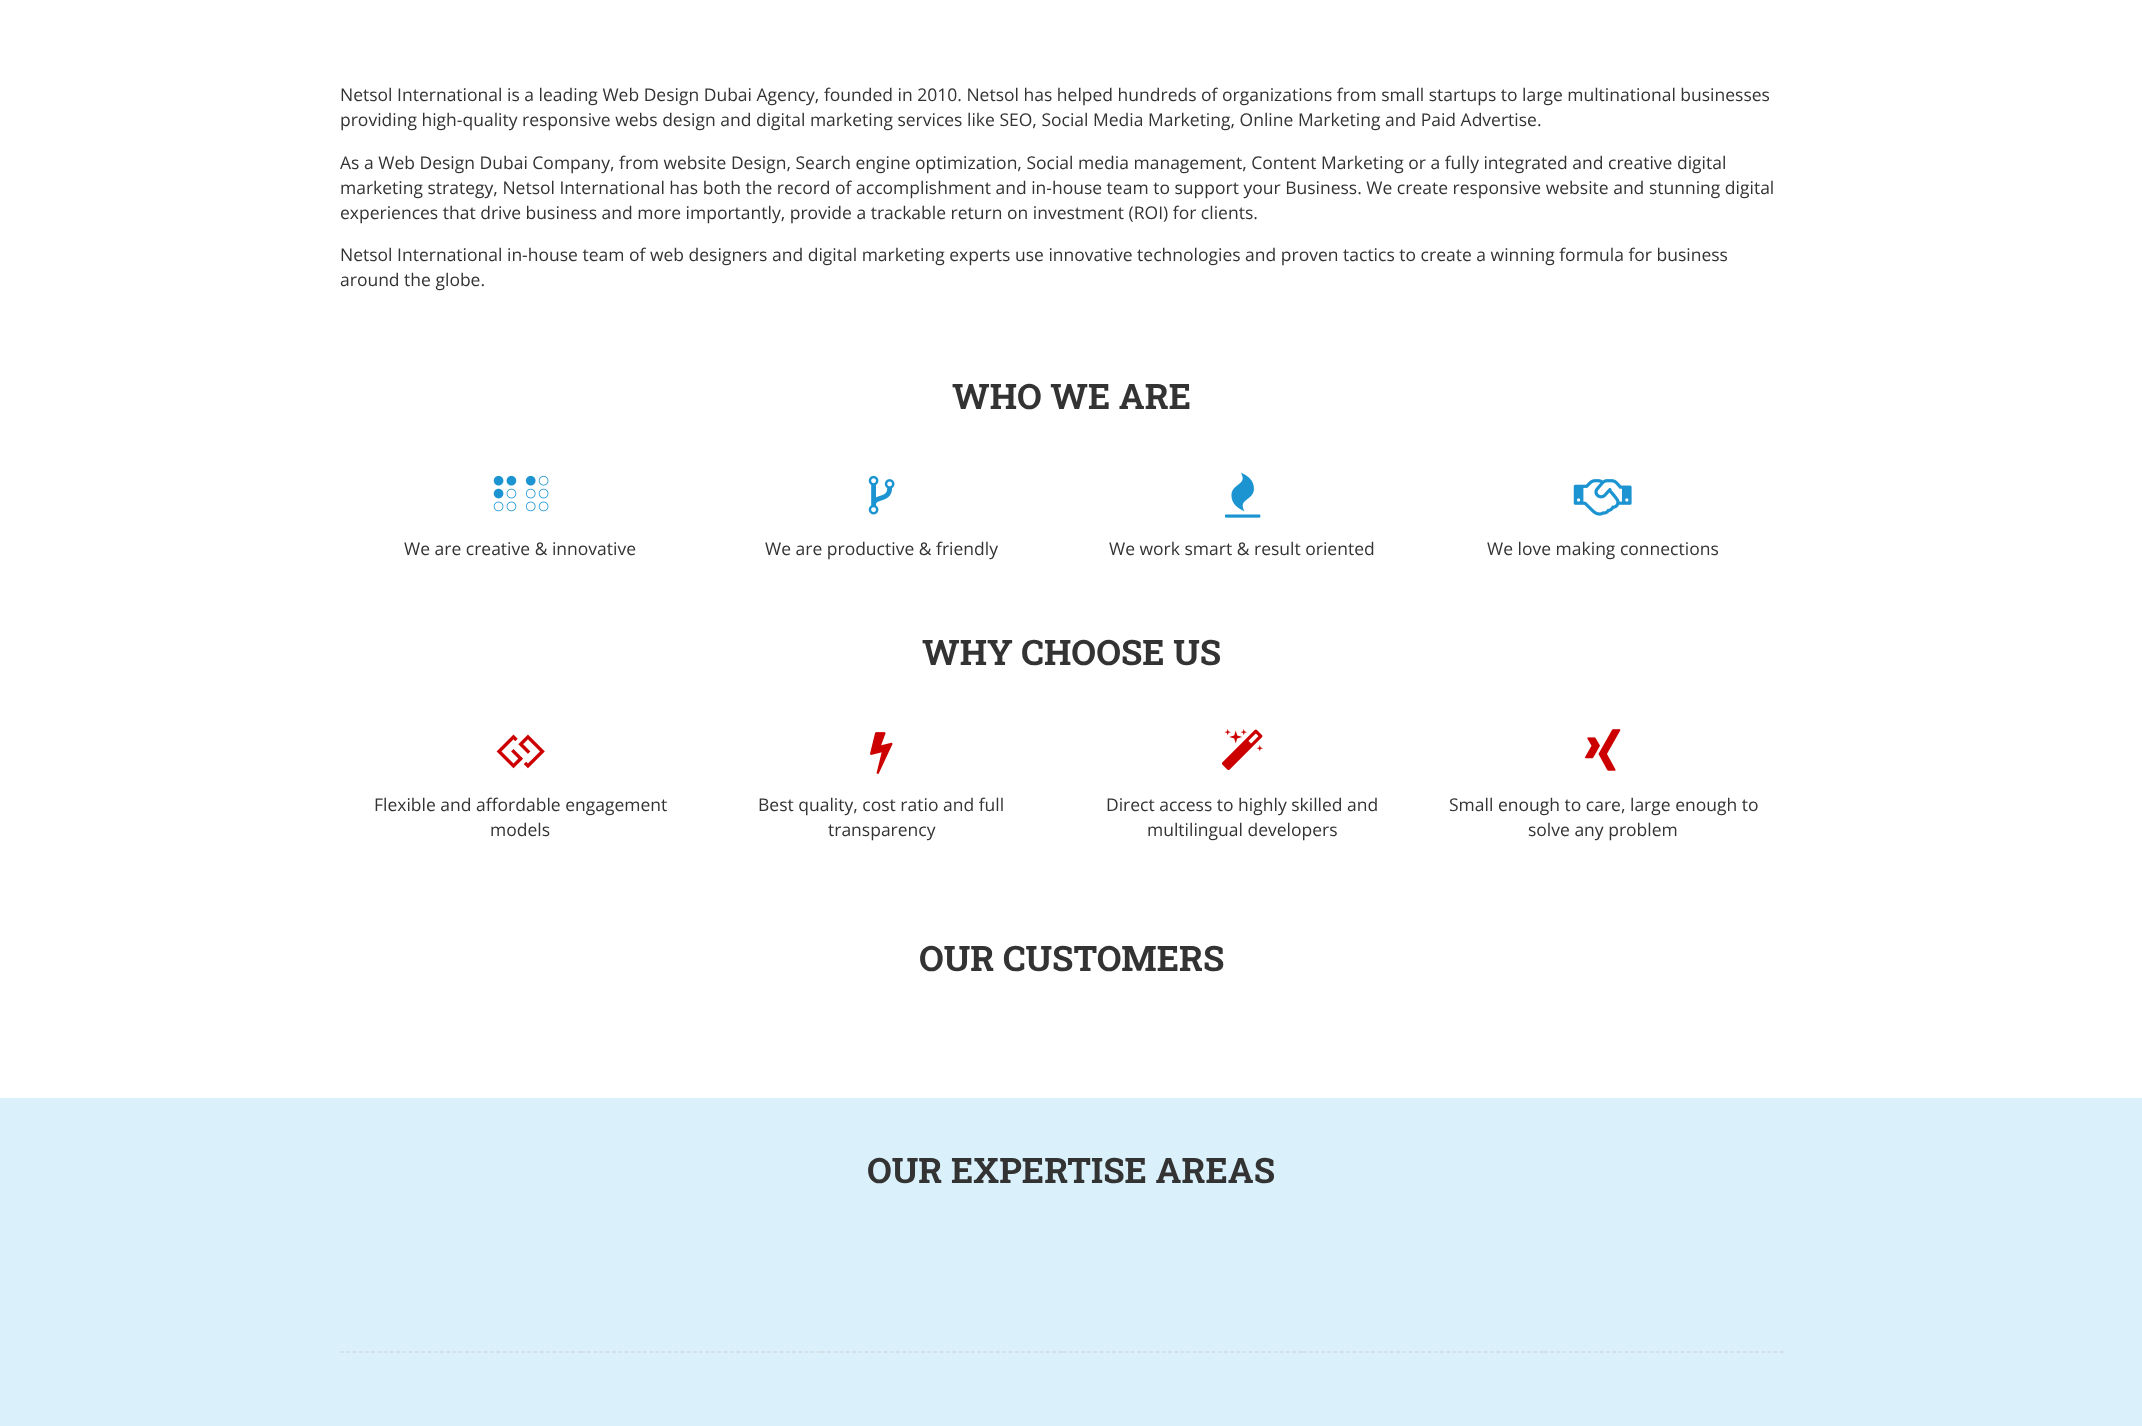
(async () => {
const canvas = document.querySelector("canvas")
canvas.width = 2142
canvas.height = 1426
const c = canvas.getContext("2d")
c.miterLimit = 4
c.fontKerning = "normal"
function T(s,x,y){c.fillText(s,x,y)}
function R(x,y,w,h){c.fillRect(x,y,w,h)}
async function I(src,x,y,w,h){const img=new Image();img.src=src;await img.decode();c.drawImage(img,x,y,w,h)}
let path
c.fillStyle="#fff"
R(0,0,2142,1426)
c.font="17.5px Open Sans"
c.fillStyle="#333"
T("Netsol International is a leading Web Design Dubai Agency, founded in 2010. Netsol has helped hundreds of organizations from small startups to large multinational businesses",340,101)
T("providing high-quality responsive webs design and digital marketing services like SEO, Social Media Marketing, Online Marketing and Paid Advertise.",340,126)
T("As a Web Design Dubai Company, from website Design, Search engine optimization, Social media management, Content Marketing or a fully integrated and creative digital",340,169)
T("marketing strategy, Netsol International has both the record of accomplishment and in-house team to support your Business. We create responsive website and stunning digital",340,194)
T("experiences that drive business and more importantly, provide a trackable return on investment (ROI) for clients.",340,219)
T("Netsol International in-house team of web designers and digital marketing experts use innovative technologies and proven tactics to create a winning formula for business",340,261)
T("around the globe.",340,286)
c.font="bold 35px Roboto Slab"
T("WHO WE ARE",952,409)
await I("1.png",493,475,56,37)
c.font="17.5px Open Sans"
T("We are creative & innovative",404,555)
await I("2.png",868,475,27,40)
T("We are productive & friendly",765,555)
await I("3.png",1225,472,36,46)
T("We work smart & result oriented",1109,555)
await I("4.png",1573,479,59,37)
T("We love making connections",1487,555)
c.font="bold 35px Roboto Slab"
T("WHY CHOOSE US",922,665)
await I("5.png",496,734,49,35)
c.font="17.5px Open Sans"
T("Flexible and affordable engagement",374,811)
T("models",490,836)
await I("6.png",870,732,23,42)
T("Best quality, cost ratio and full",758,811)
T("transparency",828,836)
await I("7.png",1221,729,42,41)
T("Direct access to highly skilled and",1106,811)
T("multilingual developers",1147,836)
await I("8.png",1585,729,36,42)
T("Small enough to care, large enough to",1449,811)
T("solve any problem",1528,836)
c.font="bold 35px Roboto Slab"
T("OUR CUSTOMERS",919,971)
c.fillStyle="#daf1fc"
R(0,1098,2142,328)
c.fillStyle="#333"
T("OUR EXPERTISE AREAS",867,1183)
path = new Path2D("M340 1352h241")
c.strokeStyle="#cdd0d4"
c.lineWidth=1.2
c.setLineDash([3.75,2.5])
c.stroke(path)
path = new Path2D("M581 1352h240")
c.setLineDash([3.75,2.46])
c.stroke(path)
path = new Path2D("M821 1352h241.5")
c.setLineDash([3.75,2.5])
c.stroke(path)
path = new Path2D("M1062.5 1352h240")
c.setLineDash([3.75,2.46])
c.stroke(path)
path = new Path2D("M1302.5 1352h241.5")
c.setLineDash([3.75,2.5])
c.stroke(path)
path = new Path2D("M1544 1352h240")
c.setLineDash([3.75,2.46])
c.stroke(path)
})()
